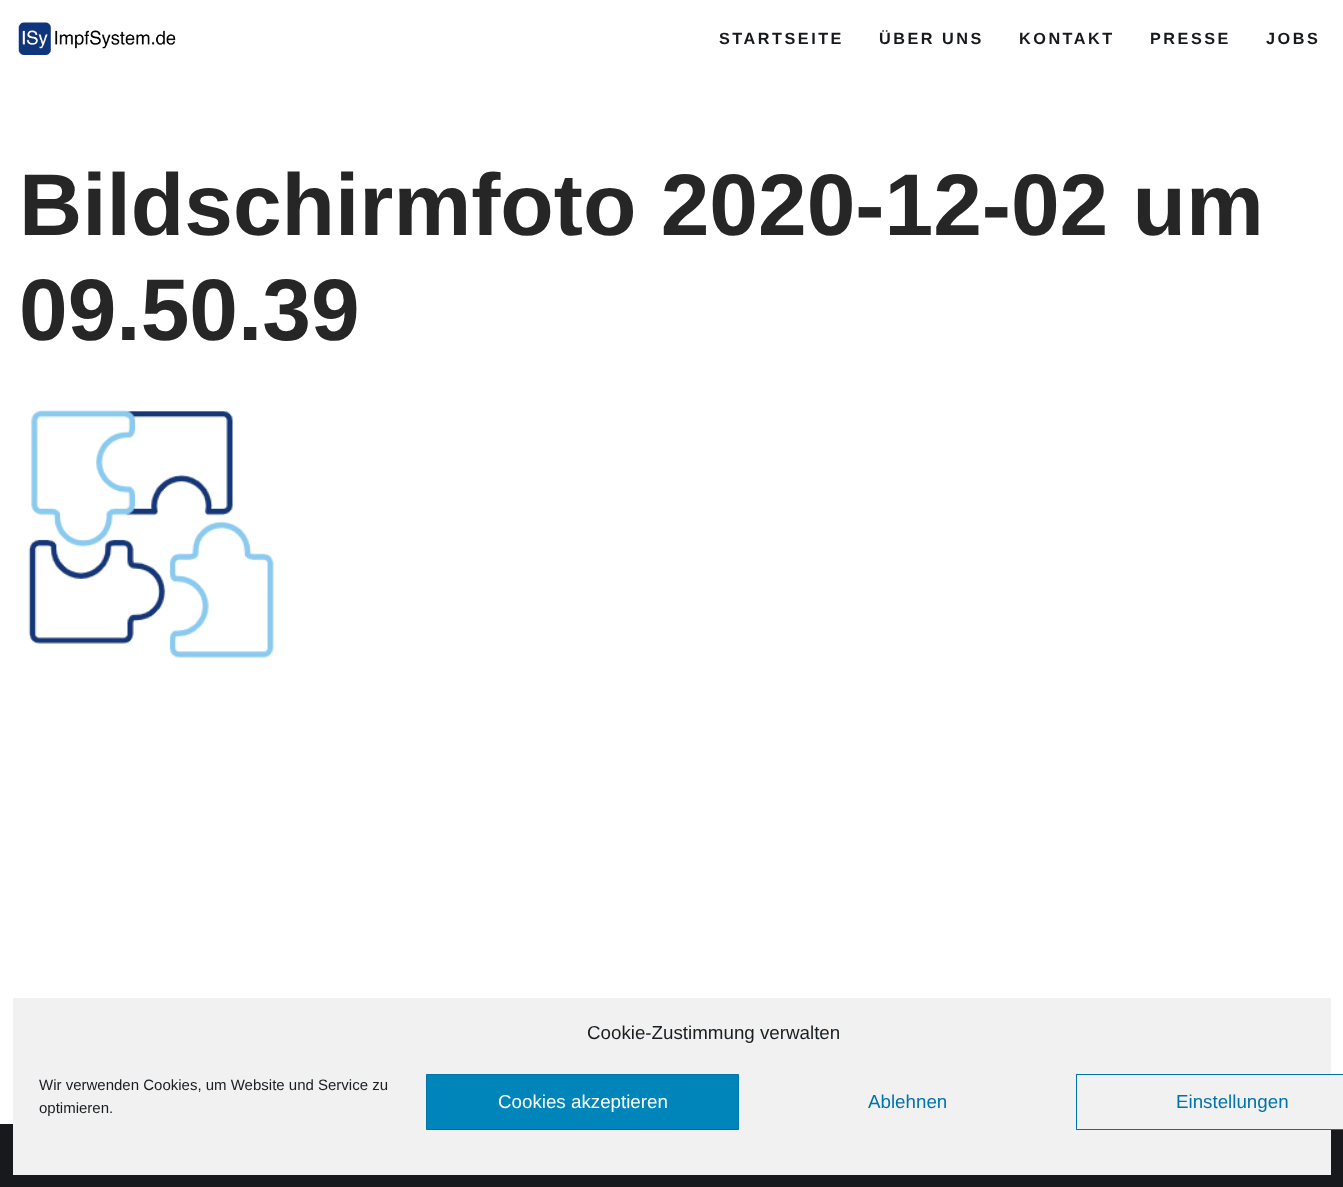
(async () => {
const canvas = document.querySelector("canvas")
canvas.width = 1343
canvas.height = 1187
const c = canvas.getContext("2d")
c.miterLimit = 4
c.fontKerning = "normal"
function T(s,x,y){c.fillText(s,x,y)}
function R(x,y,w,h){c.fillRect(x,y,w,h)}
async function I(src,x,y,w,h){const img=new Image();img.src=src;await img.decode();c.drawImage(img,x,y,w,h)}
c.fillStyle="#fff"
R(0,0,1343,1187)
await I("1.png",18,22,158,33)
c.letterSpacing="2.5px"
c.font="bold 16.25px Liberation Sans"
c.fillStyle="#18191d"
T("STARTSEITE",719,44)
T("ÜBER UNS",879,44)
T("KONTAKT",1019,44)
T("PRESSE",1150,44)
T("JOBS",1266,44)
c.letterSpacing="0px"
c.font="bold 87.5px Liberation Sans"
c.fillStyle="#272626"
T("Bildschirmfoto 2020-12-02 um",19,235)
T("09.50.39",19,340)
await I("2.png",28,410,246,248)
c.fillStyle="#18191d"
R(0,1124,1343,63)
c.fillStyle="#f1f1f1"
R(13,998,1318,177)
c.font="18.75px Liberation Sans"
c.fillStyle="#191e23"
T("Cookie-Zustimmung verwalten",587,1039)
c.font="15px Liberation Sans"
T("Wir verwenden Cookies, um Website und Service zu",39,1090)
T("optimieren.",39,1113)
c.fillStyle="#0085ba"
c.beginPath()
c.rect(426.5,1074.5,312,55)
c.fill()
c.strokeStyle="#0073aa"
c.stroke()
c.font="18.75px Liberation Sans"
c.fillStyle="#fff"
T("Cookies akzeptieren",498,1108)
c.fillStyle="#0073aa"
T("Ablehnen",868,1108)
c.fillStyle="#f1f1f1"
R(1331,1075,12,54)
c.strokeRect(1076.5,1074.5,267,55)
c.fillStyle="#0073aa"
T("Einstellungen",1176,1108)
})()
